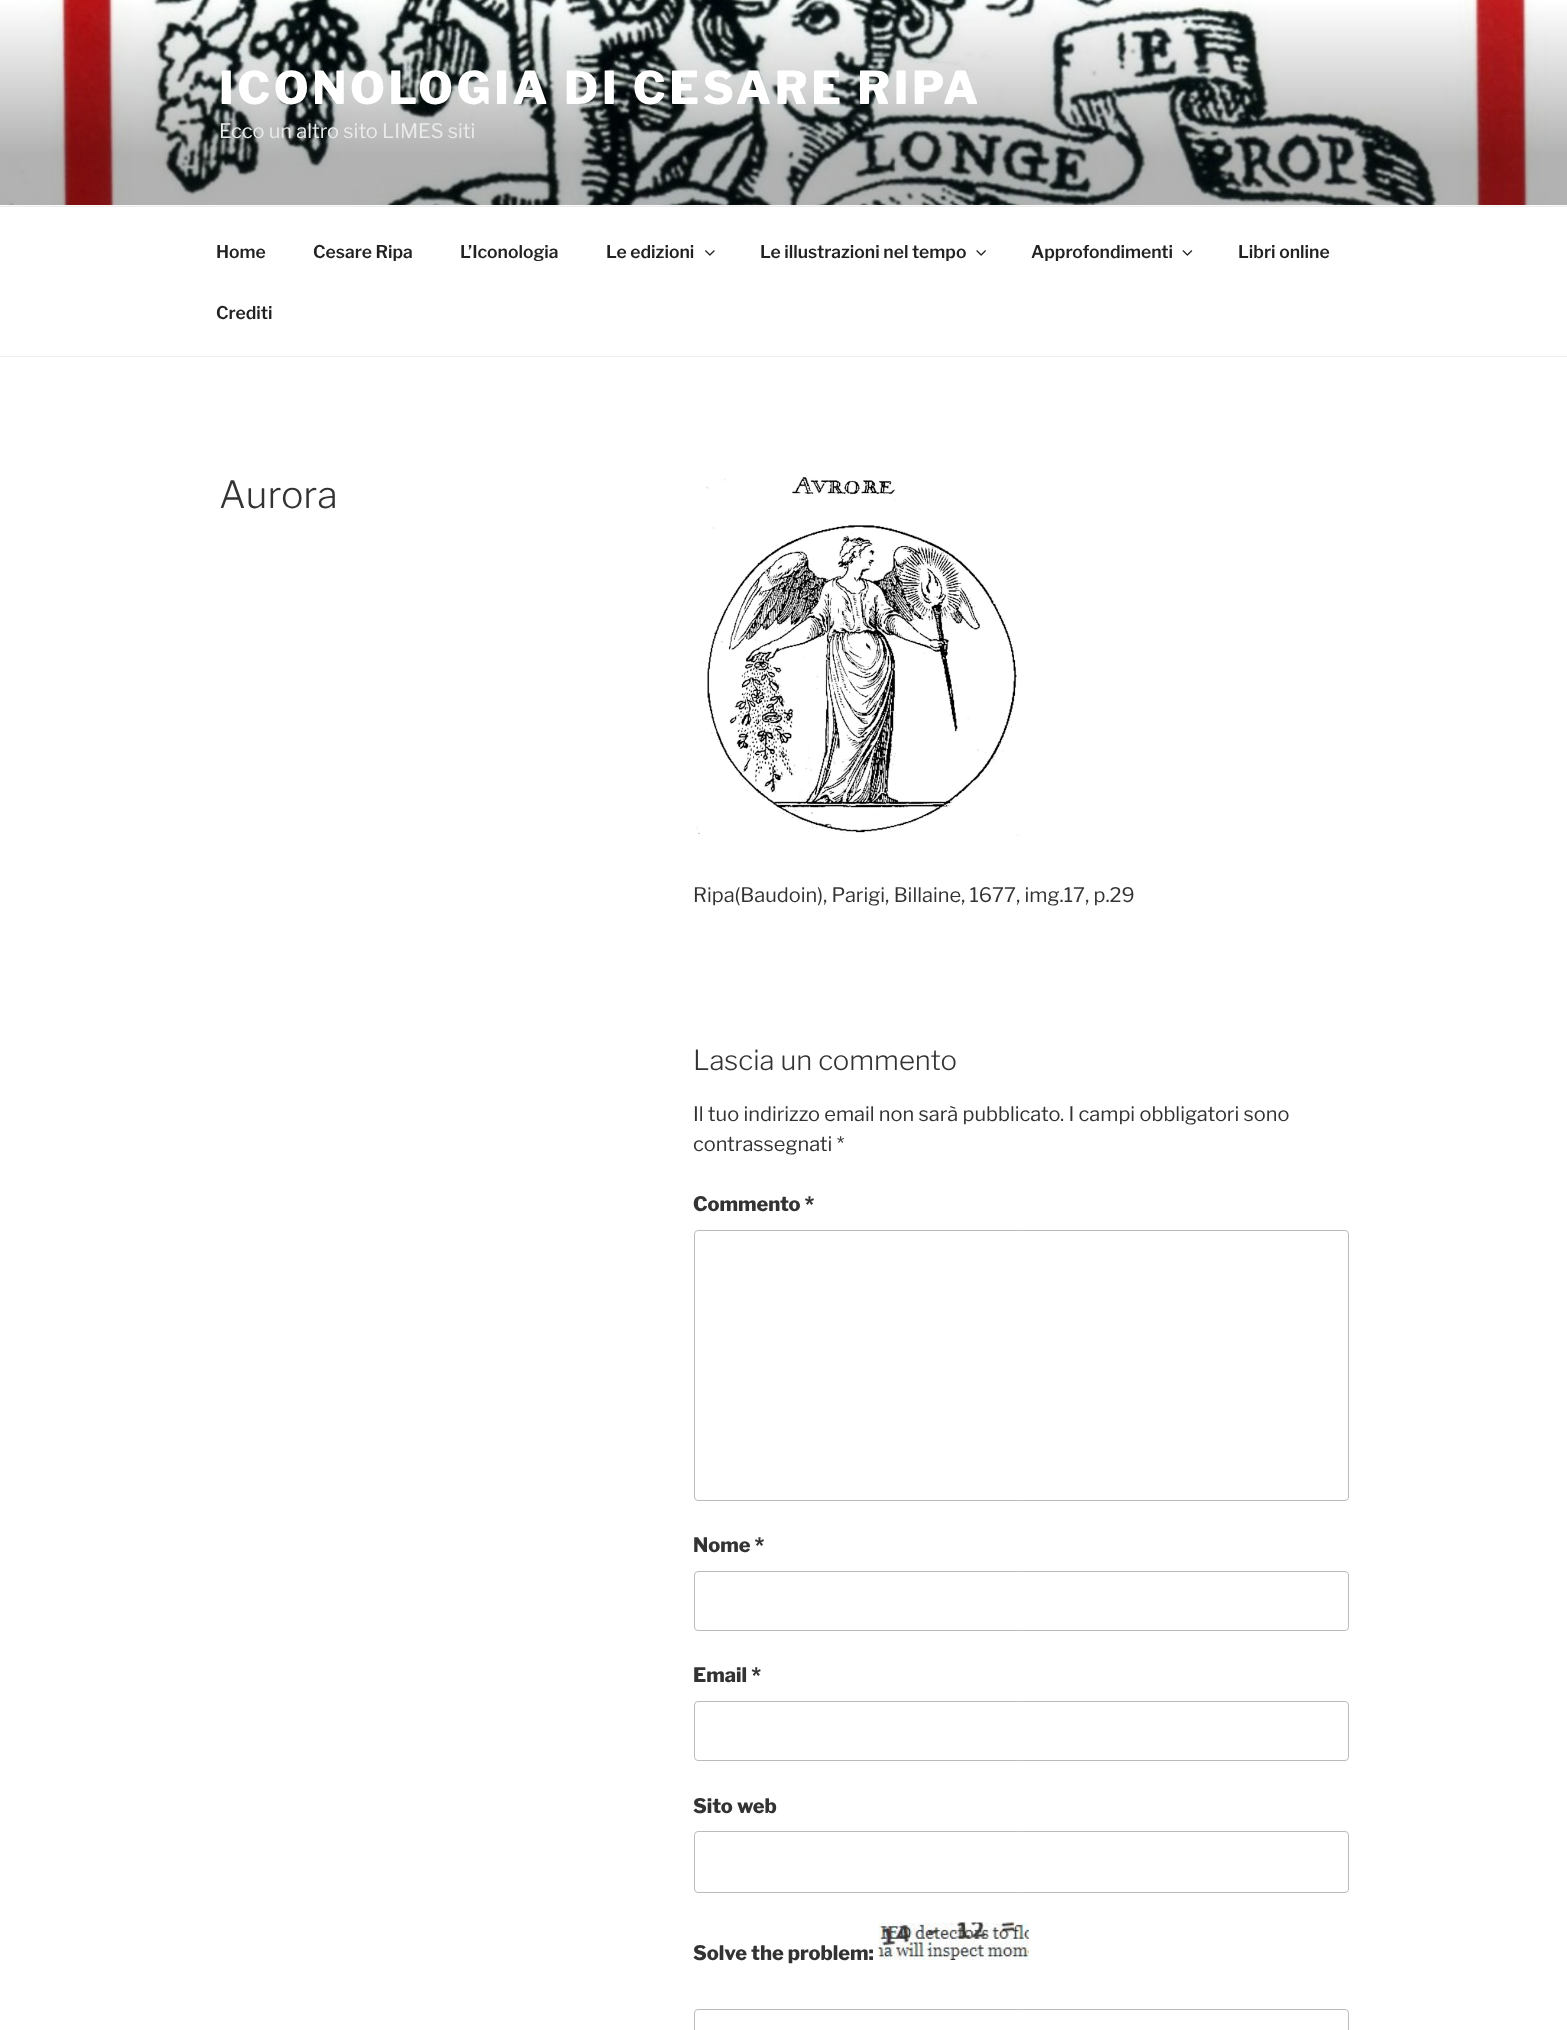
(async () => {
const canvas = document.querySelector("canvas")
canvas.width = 1567
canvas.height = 2030
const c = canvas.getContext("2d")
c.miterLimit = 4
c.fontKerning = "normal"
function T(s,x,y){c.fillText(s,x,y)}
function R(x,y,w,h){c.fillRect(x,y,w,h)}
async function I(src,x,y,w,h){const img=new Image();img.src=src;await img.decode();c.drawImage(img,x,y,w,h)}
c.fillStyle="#fff"
R(0,0,1567,2030)
c.fillStyle="#fafafa"
R(0,205,1567,1)
await I("1.png",0,0,1567,205)
c.letterSpacing="3.6px"
c.font="100 45px 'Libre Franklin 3'"
c.fillStyle="#fff"
T("ICONOLOGIA DI CESARE RIPA",219,104)
c.letterSpacing="0px"
c.font="100 20px 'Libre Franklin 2'"
c.fillStyle="#e9eaea"
T("Ecco un altro sito LIMES siti",219,138)
c.fillStyle="#eee"
R(0,206,1567,1)
R(0,356,1567,1)
c.font="100 17.5px 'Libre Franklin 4'"
c.fillStyle="#222"
T("Home",216,258)
T("Cesare Ripa",313,258)
T("L’Iconologia",460,258)
T("Le edizioni",606,258)
await I("2.png",705,250,10,6)
T("Le illustrazioni nel tempo",760,258)
await I("3.png",976,250,10,6)
T("Approfondimenti",1031,258)
await I("4.png",1182,250,11,6)
T("Libri online",1238,258)
T("Crediti",216,319)
c.font="100 37.5px Libre Franklin"
c.fillStyle="#333"
T("Aurora",219,508)
await I("5.png",696,475,323,361)
c.font="100 20px 'Libre Franklin 2'"
T("Ripa(Baudoin), Parigi, Billaine, 1677, img.17, p.29",693,902)
c.font="100 27.5px Libre Franklin"
T("Lascia un commento",693,1070)
c.font="100 20px 'Libre Franklin 2'"
T("Il tuo indirizzo email non sarà pubblicato. I campi obbligatori sono",693,1121)
T("contrassegnati *",693,1151)
c.font="100 20px 'Libre Franklin 3'"
T("Commento *",693,1211)
c.beginPath()
c.roundRect(694.5,1230.5,654,270,3.5)
c.strokeStyle="#bbb"
c.stroke()
T("Nome *",693,1552)
c.beginPath()
c.roundRect(694.5,1571.5,654,59,3.5)
c.stroke()
T("Email *",693,1682)
c.beginPath()
c.roundRect(694.5,1701.5,654,59,3.5)
c.stroke()
T("Sito web",693,1813)
c.beginPath()
c.roundRect(694.5,1831.5,654,61,3.5)
c.stroke()
T("Solve the problem:",693,1960)
await I("6.png",878,1922,151,38)
c.beginPath()
c.roundRect(694.5,2009.5,654,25,3.5)
c.stroke()
})()
